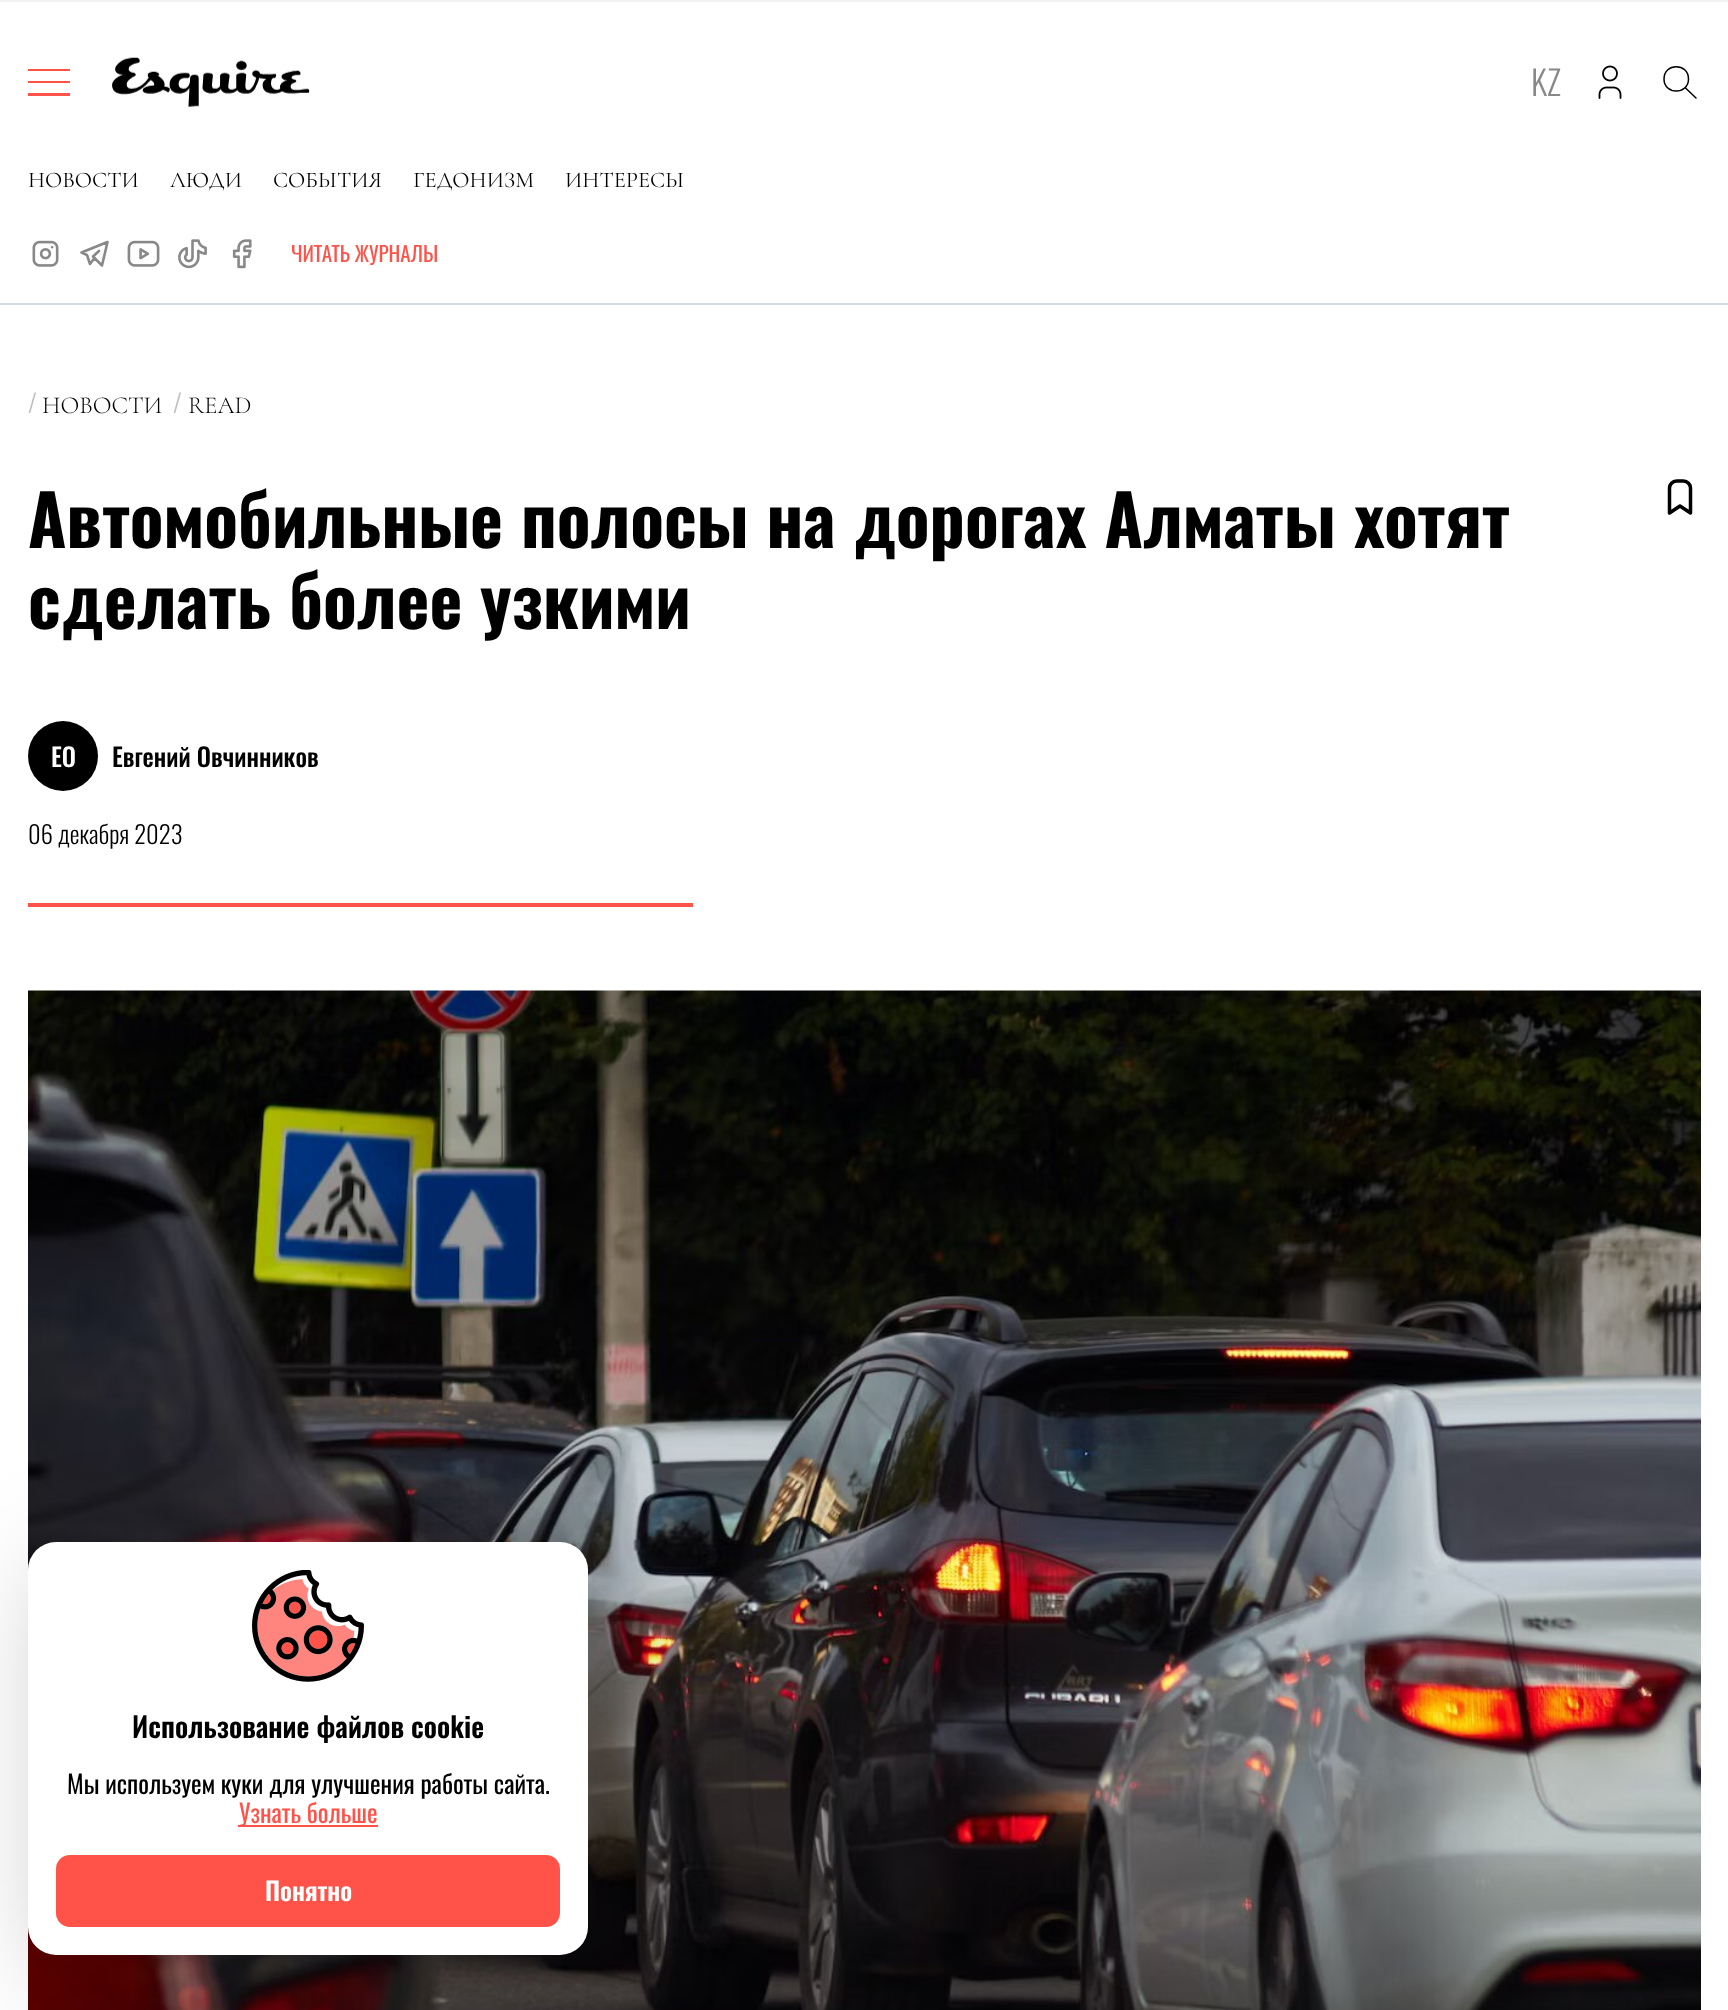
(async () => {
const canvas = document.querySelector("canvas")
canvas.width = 1728
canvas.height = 2010
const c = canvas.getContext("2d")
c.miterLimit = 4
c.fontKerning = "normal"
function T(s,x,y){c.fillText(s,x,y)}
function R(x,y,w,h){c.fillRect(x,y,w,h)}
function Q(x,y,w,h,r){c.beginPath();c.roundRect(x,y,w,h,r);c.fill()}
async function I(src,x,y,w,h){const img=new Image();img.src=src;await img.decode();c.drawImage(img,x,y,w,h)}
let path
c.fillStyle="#fff"
R(0,0,1728,2010)
c.fillStyle="#f2f2f2"
R(0,0,1728,2)
c.fillStyle="#d5dbe3"
R(0,303,1728,2)
c.fillStyle="#ff5349"
R(28,69,42,2)
R(28,81,42,2)
R(28,93,42,3)
await I("1.png",112,57,198,50)
c.font="300 34px Oswald"
c.fillStyle="#888"
T("KZ",1531,96)
await I("2.png",1598,65,24,34)
path = new Path2D("M1664 79c0 16 24.5 16 24.5 0c0-16.5-24.5-16.5-24.5 0zm32 19l-11-10.5")
c.strokeStyle="#000"
c.lineWidth=1.5
c.lineCap="round"
c.lineJoin="round"
c.stroke(path)
c.font="22.5px Cormorant Garamond"
c.fillStyle="#000"
T("НОВОСТИ",28,187)
T("ЛЮДИ",170,187)
T("СОБЫТИЯ",273,187)
T("ГЕДОНИЗМ",413,187)
T("ИНТЕРЕСЫ",565,187)
await I("3.png",32,240,27,27)
path = new Path2D("M99 251l-6 5.5l9 9l5.5-23.5l-26 10.5l5.5 2.5l3 9l4.5-6")
c.strokeStyle="#888"
c.lineWidth=2.6
c.stroke(path)
await I("4.png",127,240,33,27)
await I("5.png",178,239,29,30)
await I("6.png",232,239,20,30)
c.font="21px Oswald"
c.fillStyle="#ff5349"
T("ЧИТАТЬ ЖУРНАЛЫ",291,262)
c.font="300 25.25px Oswald"
c.fillStyle="#bfbfbf"
T("/",28,413)
c.font="300 24.5px Cormorant Garamond"
c.fillStyle="#000"
T("НОВОСТИ",42,413)
c.font="300 25.25px Oswald"
c.fillStyle="#bfbfbf"
T("/",173,413)
c.font="300 24.5px Cormorant Garamond"
c.fillStyle="#000"
T("READ",188,413)
c.font="bold 70px Oswald"
T("Автомобильные полосы на дорогах Алматы хотят",28,548)
T("сделать более узкими",28,629)
path = new Path2D("M1690.5 488v25l-10.5-7l-10.5 7v-25c0-3.5 3-7 7-7h7c4 0 7 3.5 7 7z")
c.strokeStyle="#000"
c.lineWidth=3.5
c.stroke(path)
c.beginPath()
c.arc(63,756,35,0,7)
c.fill()
c.font="500 25.25px Oswald"
c.fillStyle="#fff"
T("ЕО",51,767)
c.fillStyle="#000"
T("Евгений Овчинников",112,767)
c.font="300 24.5px Oswald"
T("06 декабря 2023",28,844)
c.fillStyle="#ff5349"
R(28,903,665,4)
await I("7.png",28,990,1673,1020)
c.fillStyle="#00000040"
c.filter="blur(56px)"
c.beginPath()
c.roundRect(53,1566,560,413,28)
c.fill()
c.filter="none"
c.fillStyle="#fff"
Q(28,1542,560,413,28)
await I("8.png",252,1570,112,112)
c.font="600 28px Oswald"
c.fillStyle="#000"
T("Использование файлов cookie",132,1738)
c.font="25.25px Oswald"
T("Мы используем куки для улучшения работы сайта.",67,1794)
c.fillStyle="#ff5349"
R(238,1825,140,2)
T("Узнать больше",239,1823)
Q(56,1855,504,72,14)
c.font="600 25.25px Oswald"
c.fillStyle="#fff"
T("Понятно",265,1901)
})()
